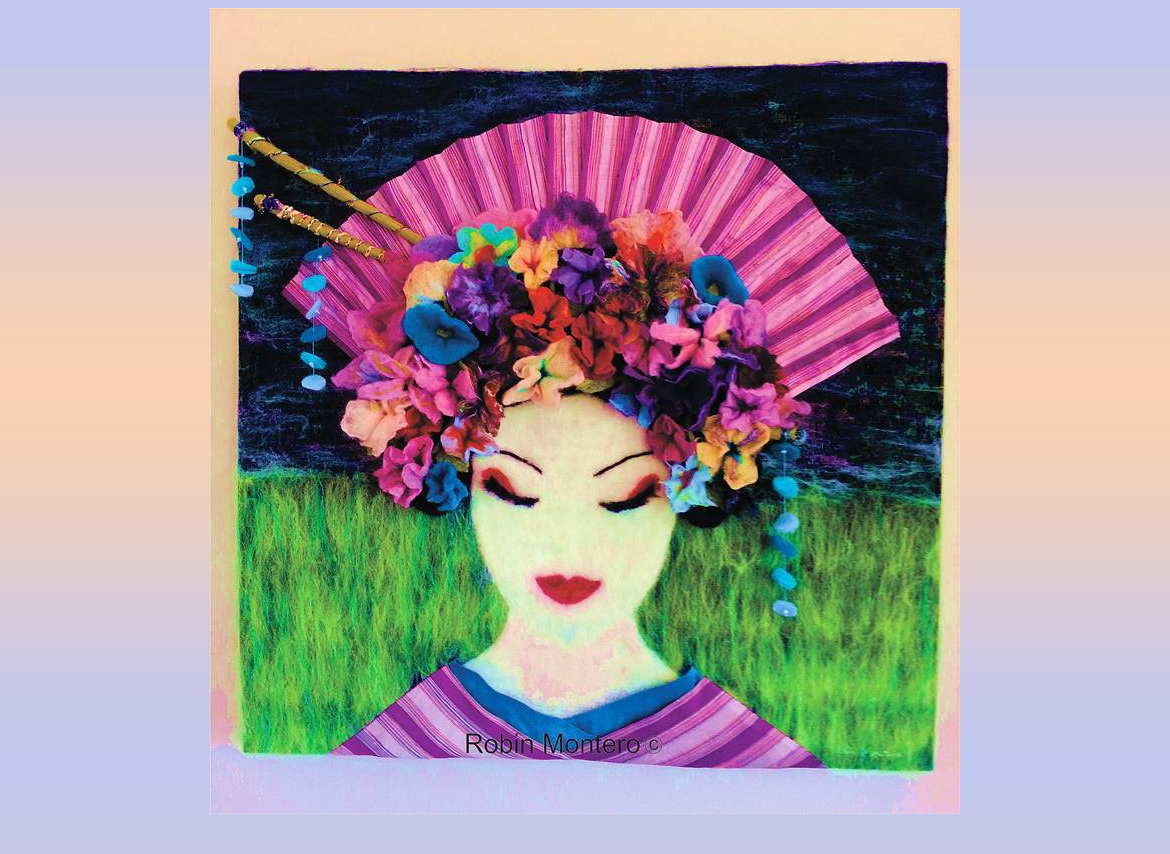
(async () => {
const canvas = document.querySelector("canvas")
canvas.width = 1170
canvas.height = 854
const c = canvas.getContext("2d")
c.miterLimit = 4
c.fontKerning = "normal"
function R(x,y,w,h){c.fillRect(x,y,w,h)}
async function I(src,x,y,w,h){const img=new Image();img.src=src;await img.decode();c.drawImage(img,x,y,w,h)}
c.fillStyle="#c3c7ed"
R(0,0,1170,854)
await I("1.png",0,67,1170,787)
await I("2.png",210,8,750,806)
})()
